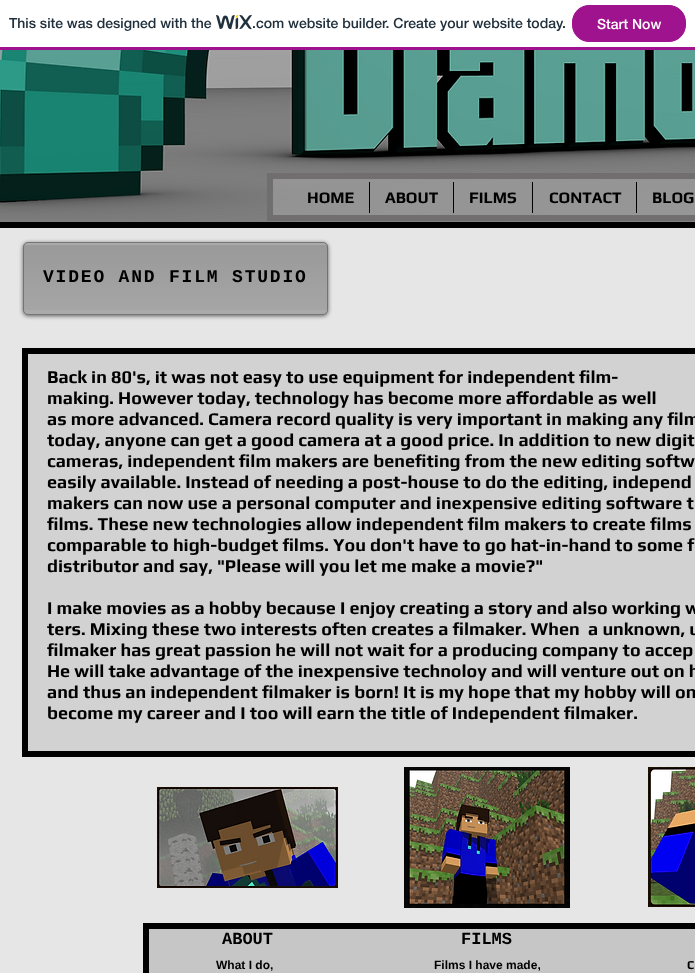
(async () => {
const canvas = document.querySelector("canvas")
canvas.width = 695
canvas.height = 973
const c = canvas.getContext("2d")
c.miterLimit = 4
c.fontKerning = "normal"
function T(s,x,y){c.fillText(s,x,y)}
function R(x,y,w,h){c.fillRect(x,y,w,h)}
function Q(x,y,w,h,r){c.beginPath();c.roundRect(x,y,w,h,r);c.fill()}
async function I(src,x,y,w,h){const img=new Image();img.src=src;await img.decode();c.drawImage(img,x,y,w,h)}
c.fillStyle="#e6e6e6"
R(0,0,695,973)
c.fillStyle="#fff"
R(0,0,695,47)
c.fillStyle="#a0138e"
R(0,47,695,3)
c.font="500 14px 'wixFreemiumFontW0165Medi'"
c.fillStyle="#20303c"
T("This site was designed with the",9,28)
await I("1.png",216,15,36,15)
T(".com website builder. Create your website today.",252,28)
c.fillStyle="#a0138e"
c.beginPath()
c.roundRect(572.5,5.5,113,36,16.5)
c.fill()
c.strokeStyle="#a0138e"
c.stroke()
c.fillStyle="#fff"
T("Start Now",597,29)
c.fillStyle="#000"
R(0,222,695,6)
await I("2.png",0,50,695,172)
c.fillStyle="#aaaaaa80"
R(267,173,428,48)
c.strokeStyle="#646262bf"
c.lineWidth=6
c.strokeRect(270,176,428,42)
c.font="bold 16px Play"
c.fillStyle="#000"
T("HOME",307,203)
R(369,182,1,31)
T("ABOUT",385,203)
R(453,182,1,31)
T("FILMS",469,203)
R(532,182,1,31)
T("CONTACT",549,203)
R(636,182,1,31)
T("BLOG",652,203)
c.fillStyle="#00000099"
c.filter="blur(2px)"
c.beginPath()
c.roundRect(23,243,305,73,5)
c.fill()
c.filter="none"
c.fillStyle="#aaa"
Q(23,242,305,73,5)
await I("3.png",23,245,305,65)
c.beginPath()
c.roundRect(23.5,242.5,304,72,4.5)
c.lineWidth=1
c.stroke()
c.letterSpacing="1.8px"
c.font="bold 18px Liberation Mono"
c.fillStyle="#000"
T("VIDEO AND FILM STUDIO",43,282)
c.fillStyle="#d2d2d2"
c.beginPath()
c.rect(25,351,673,403)
c.fill()
c.strokeStyle="#000"
c.lineWidth=6
c.stroke()
c.letterSpacing="0px"
c.font="bold 18px Play"
c.fillStyle="#000"
T("Back in 80's, it was not easy to use equipment for independent film-",47,383)
T("making. However today, technology has become more affordable as well",47,404)
T("as more advanced. Camera record quality is very important in making any film",47,425)
T("today, anyone can get a good camera at a good price. In addition to new digit",47,446)
T("cameras, independent film makers are benefiting from the new editing softw",47,467)
T("easily available. Instead of needing a post-house to do the editing, independ",47,488)
T("makers can now use a personal computer and inexpensive editing software t",47,509)
T("films. These new technologies allow independent film makers to create films",47,530)
T("comparable to high-budget films. You don't have to go hat-in-hand to some f",47,551)
T("distributor and say, \"Please will you let me make a movie?\"",47,572)
T("I make movies as a hobby because I enjoy creating a story and also working w",47,614)
T("ters. Mixing these two interests often creates a filmaker. When  a unknown, u",47,635)
T("filmaker has great passion he will not wait for a producing company to accep",47,656)
T("He will take advantage of the inexpensive technoloy and will venture out on h",47,677)
T("and thus an independent filmaker is born! It is my hope that my hobby will on",47,698)
T("become my career and I too will earn the title of Independent filmaker.",47,719)
await I("4.png",157,787,181,101)
await I("5.png",404,767,166,141)
await I("6.png",648,767,47,140)
c.fillStyle="#c6c6c6"
c.beginPath()
c.rect(146,926,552,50)
c.fill()
c.stroke()
c.font="bold 17px Liberation Mono"
c.fillStyle="#000"
T("ABOUT",222,944)
T("FILMS",461,944)
c.font="bold 12px Liberation Sans"
T("What I do,",216,969)
T("Films I have made,",434,969)
c.font="bold 12px Play"
T("C",687,969)
})()
